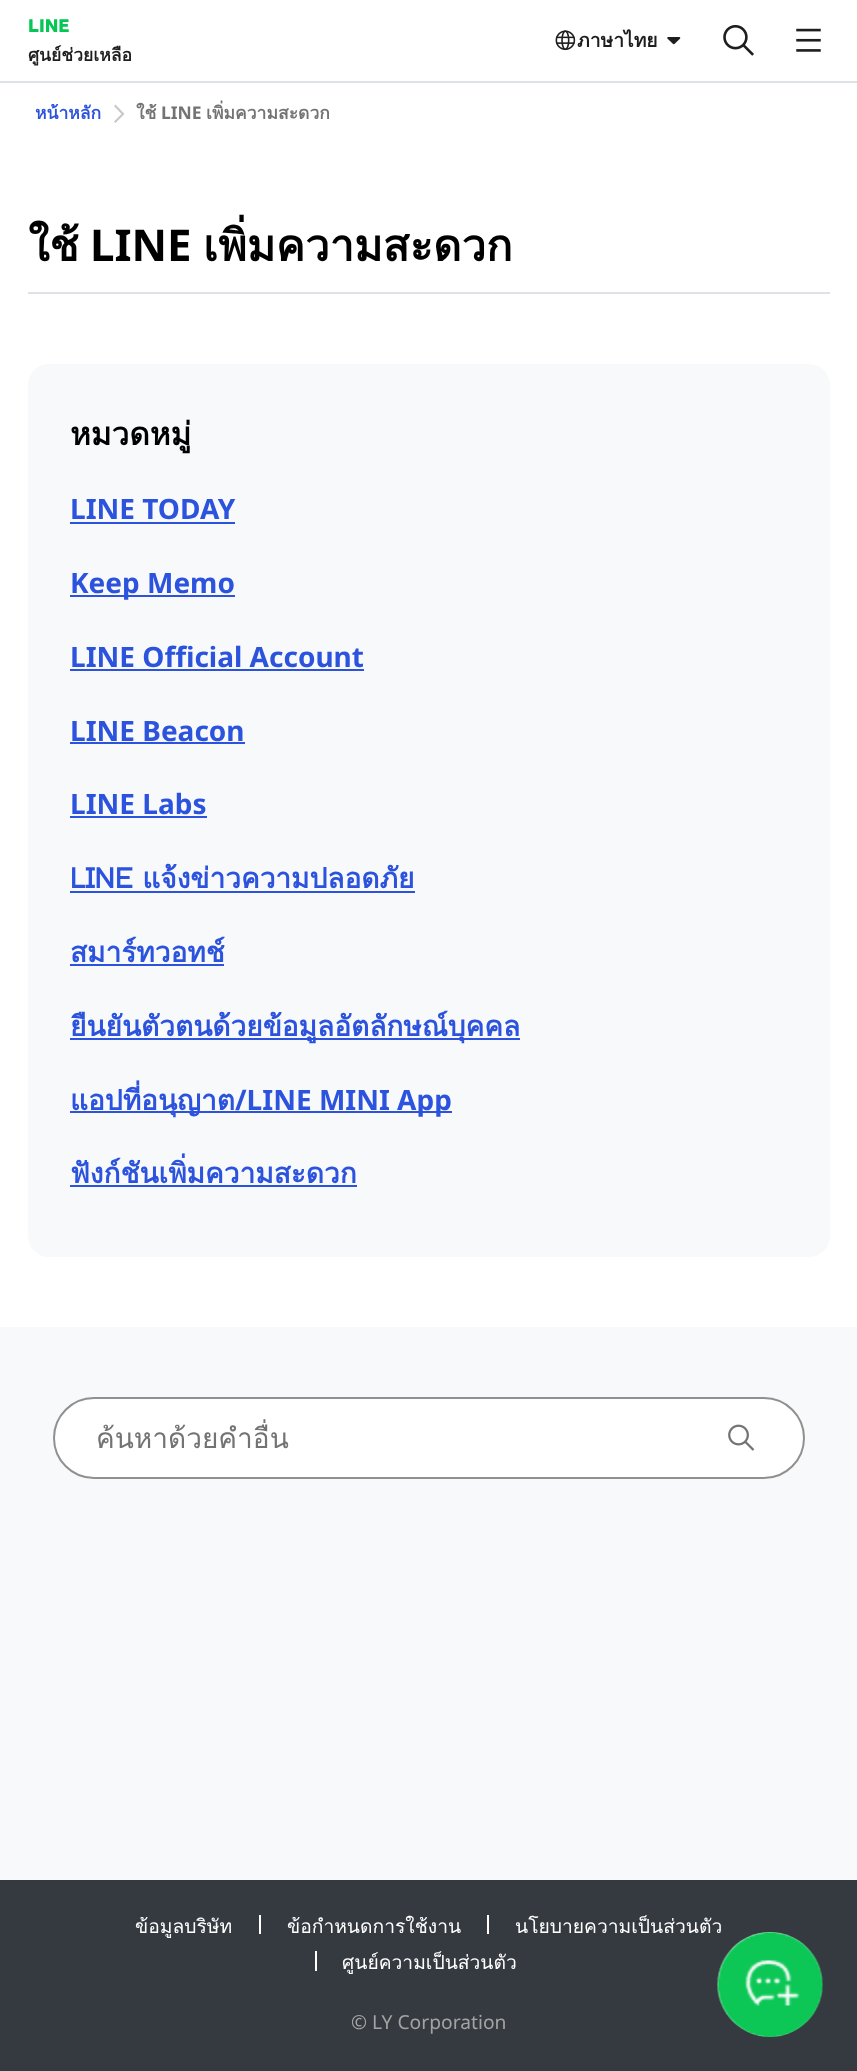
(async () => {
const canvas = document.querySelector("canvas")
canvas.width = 857
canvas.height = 2071
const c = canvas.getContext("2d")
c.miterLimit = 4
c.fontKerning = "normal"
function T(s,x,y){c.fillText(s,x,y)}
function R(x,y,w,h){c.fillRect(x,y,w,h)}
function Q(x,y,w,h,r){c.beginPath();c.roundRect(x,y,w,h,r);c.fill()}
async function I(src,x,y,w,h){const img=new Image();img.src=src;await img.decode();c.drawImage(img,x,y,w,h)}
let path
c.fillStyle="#fff"
R(0,0,857,2071)
c.fillStyle="#dee2e6"
R(0,81,857,2)
c.font="800 17.5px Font"
c.fillStyle="#06c755"
T("LINE",28,32)
c.font="bold 17.5px Loma"
c.fillStyle="#1e1e1e"
T("ศูนย์ช่วยเหลือ",28,61)
await I("1.png",555,30,21,21)
c.font="bold 19.25px Loma"
T("ภาษาไทย",577,47)
await I("2.png",667,37,14,8)
await I("3.png",723,24,31,32)
await I("4.png",796,28,25,24)
c.fillStyle="#f8f9fa"
R(0,1327,857,553)
c.font="bold 17.5px Loma"
c.fillStyle="#2c53de"
T("หน้าหลัก",35,119)
c.fillStyle="#c8c8c8"
path = new Path2D("M115.5 104.5l9 9.5l-9 9l-1.5-1.5l7.5-7.5l-7.5-8z")
c.fill(path)
c.fillStyle="#737373"
T("ใช้",136,119)
c.font="bold 17.5px Noto Sans"
T("LINE",161,119)
c.font="bold 17.5px Loma"
T("เพิ่มความสะดวก",206,119)
c.fillStyle="#dee2e6"
R(28,292,802,2)
c.font="bold 43.75px Loma"
c.fillStyle="#000"
T("ใช้",28,261)
c.font="bold 43.75px Noto Sans"
T("LINE",90,261)
c.font="bold 43.75px Loma"
T("เพิ่มความสะดวก",203,261)
c.fillStyle="#f8f9fa"
Q(28,364,802,893,21)
c.font="bold 31.5px Loma"
c.fillStyle="#000"
T("หมวดหมู่",70,445)
c.font="bold 28px Noto Sans"
c.fillStyle="#2c53de"
T("LINE TODAY",70,519)
R(70,522,165,2)
R(70,595,165,2)
T("Keep Memo",70,593)
T("LINE Official Account",70,667)
R(70,669,294,2)
T("LINE Beacon",70,741)
R(70,742,175,2)
T("LINE Labs",70,814)
R(70,816,137,2)
c.font="bold 28px Loma"
T("LINE แจ้งข่าวความปลอดภัย",70,888)
R(70,891,345,2)
T("สมาร์ทวอทช์",70,962)
R(70,964,154,2)
R(70,1038,450,2)
T("ยืนยันตัวตนด้วยข้อมูลอัตลักษณ์บุคคล",70,1036)
R(70,1111,382,2)
T("แอปที่อนุญาต",70,1110)
c.font="bold 28px Noto Sans"
T("/LINE MINI App",235,1110)
c.font="bold 28px Loma"
T("ฟังก์ชันเพิ่มความสะดวก",70,1183)
R(70,1185,287,2)
c.fillStyle="#fff"
c.beginPath()
c.roundRect(54,1398,750,80,40)
c.fill()
c.strokeStyle="#909090"
c.lineWidth=2
c.stroke()
c.save()
c.beginPath()
c.rect(96,1416,601,44)
c.clip()
c.font="28px Loma"
c.fillStyle="#737373"
T("ค้นหาด้วยคำอื่น",96,1448)
c.restore()
await I("5.png",728,1424,27,27)
c.fillStyle="#353a40"
R(0,1880,857,191)
c.font="19.25px Loma"
c.fillStyle="#fff"
T("ข้อมูลบริษัท",135,1933)
R(259,1915,2,19)
T("ข้อกำหนดการใช้งาน",287,1933)
R(487,1915,2,19)
T("นโยบายความเป็นส่วนตัว",515,1933)
R(315,1951,2,20)
T("ศูนย์ความเป็นส่วนตัว",342,1969)
c.font="19.25px Noto Sans"
c.fillStyle="#a3a3a3"
T("© LY Corporation",351,2029)
await I("6.png",717,1932,106,105)
})()
